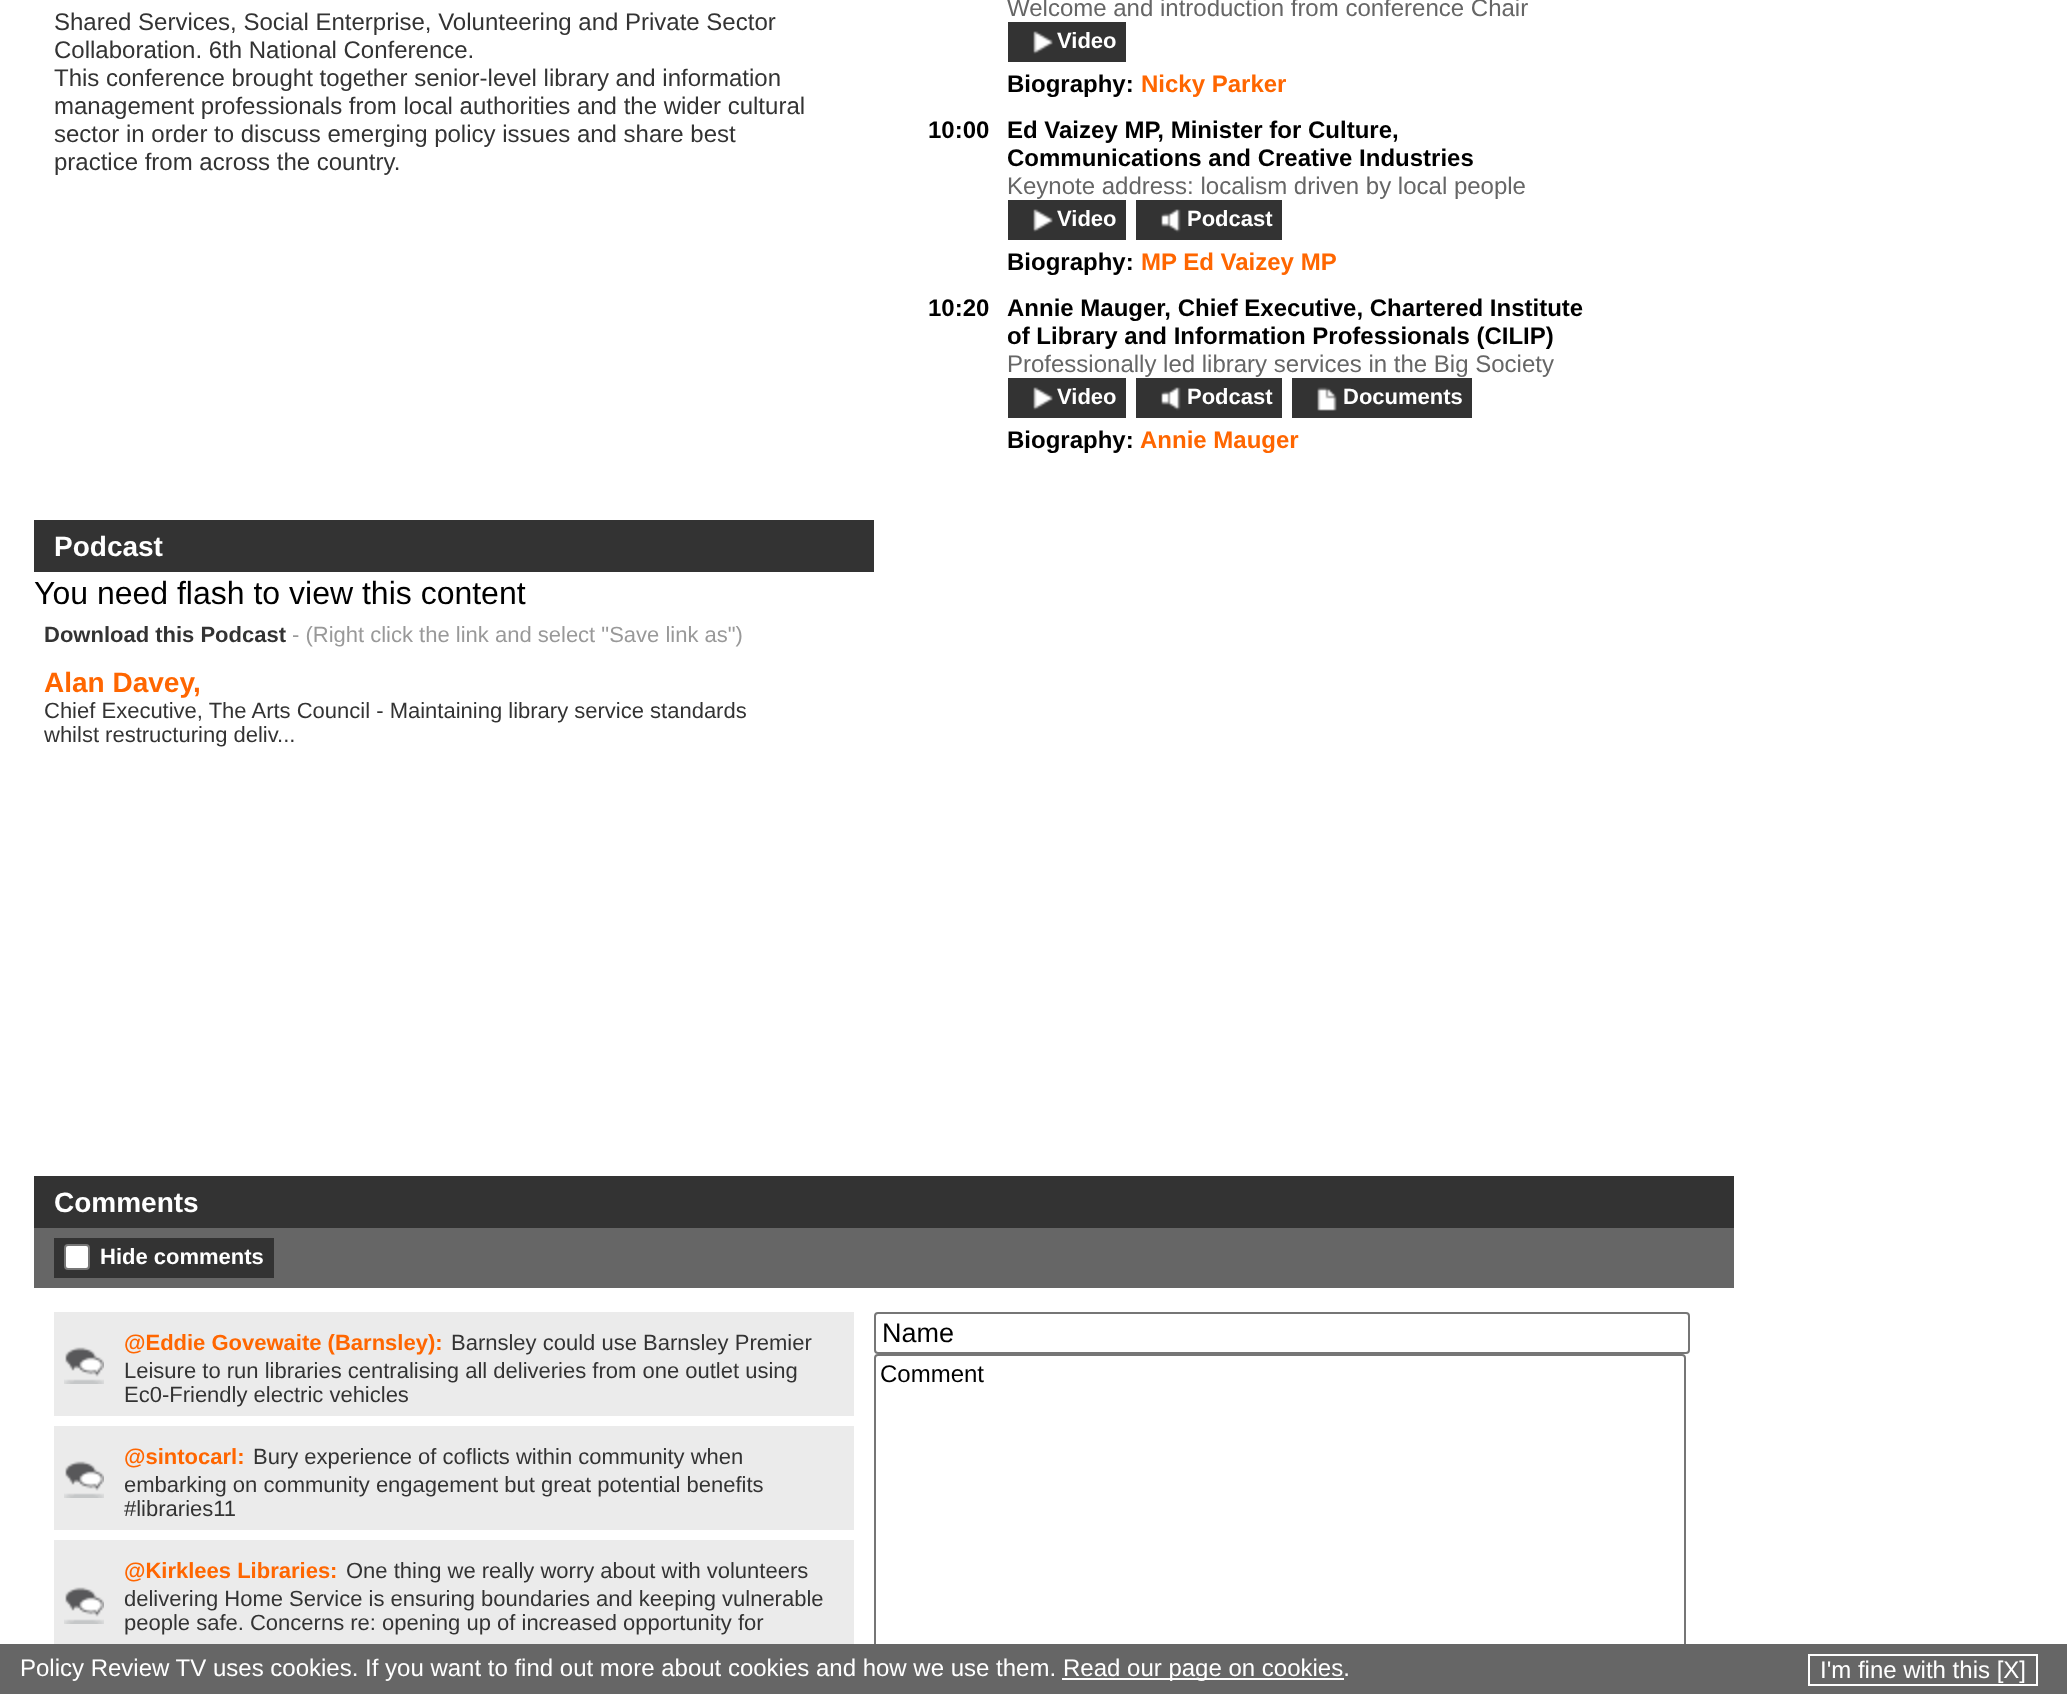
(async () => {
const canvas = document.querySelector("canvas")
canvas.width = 2067
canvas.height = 1694
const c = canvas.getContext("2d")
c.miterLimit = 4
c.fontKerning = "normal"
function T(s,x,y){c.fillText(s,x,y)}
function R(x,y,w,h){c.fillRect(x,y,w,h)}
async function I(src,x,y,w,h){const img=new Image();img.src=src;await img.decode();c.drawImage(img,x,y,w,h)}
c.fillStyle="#fff"
R(0,0,2067,1694)
c.font="24px Liberation Sans"
c.fillStyle="#333"
T("Shared Services, Social Enterprise, Volunteering and Private Sector",54,30)
T("Collaboration. 6th National Conference.",54,58)
T("This conference brought together senior-level library and information",54,86)
T("management professionals from local authorities and the wider cultural",54,114)
T("sector in order to discuss emerging policy issues and share best",54,142)
T("practice from across the country.",54,170)
c.fillStyle="#666"
T("Welcome and introduction from conference Chair",1007,16)
c.fillStyle="#333"
R(1008,22,118,40)
await I("1.png",1033,31,20,23)
c.font="bold 22px Liberation Sans"
c.fillStyle="#fff"
T("Video",1057,48)
c.font="bold 24px Liberation Sans"
c.fillStyle="#000"
T("Biography:",1007,92)
c.fillStyle="#f60"
T("Nicky Parker",1141,92)
c.fillStyle="#000"
T("10:00",928,138)
T("Ed Vaizey MP, Minister for Culture,",1007,138)
T("Communications and Creative Industries",1007,166)
c.font="24px Liberation Sans"
c.fillStyle="#666"
T("Keynote address: localism driven by local people",1007,194)
c.fillStyle="#333"
R(1008,200,118,40)
await I("1.png",1033,209,20,23)
c.font="bold 22px Liberation Sans"
c.fillStyle="#fff"
T("Video",1057,226)
c.fillStyle="#333"
R(1136,200,146,40)
await I("2.png",1161,209,20,24)
c.fillStyle="#fff"
T("Podcast",1187,226)
c.font="bold 24px Liberation Sans"
c.fillStyle="#000"
T("Biography:",1007,270)
c.fillStyle="#f60"
T("MP Ed Vaizey MP",1141,270)
c.fillStyle="#000"
T("10:20",928,316)
T("Annie Mauger, Chief Executive, Chartered Institute",1007,316)
T("of Library and Information Professionals (CILIP)",1007,344)
c.font="24px Liberation Sans"
c.fillStyle="#666"
T("Professionally led library services in the Big Society",1007,372)
c.fillStyle="#333"
R(1008,378,118,40)
await I("1.png",1033,387,20,23)
c.font="bold 22px Liberation Sans"
c.fillStyle="#fff"
T("Video",1057,404)
c.fillStyle="#333"
R(1136,378,146,40)
await I("2.png",1161,387,20,24)
c.fillStyle="#fff"
T("Podcast",1187,404)
c.fillStyle="#333"
R(1292,378,180,40)
await I("3.png",1317,387,20,24)
c.fillStyle="#fff"
T("Documents",1343,404)
c.font="bold 24px Liberation Sans"
c.fillStyle="#000"
T("Biography:",1007,448)
c.fillStyle="#f60"
T("Annie Mauger",1140,448)
c.fillStyle="#333"
R(34,520,840,52)
c.font="bold 28px Liberation Sans"
c.fillStyle="#fff"
T("Podcast",54,556)
c.font="32px Liberation Sans"
c.fillStyle="#000"
T("You need flash to view this content",34,604)
c.font="bold 22px Liberation Sans"
c.fillStyle="#333"
T("Download this Podcast",44,642)
c.font="22px Liberation Sans"
c.fillStyle="#999"
T("- (Right click the link and select \"Save link as\")",292,642)
c.font="bold 28px Liberation Sans"
c.fillStyle="#f60"
T("Alan Davey,",44,692)
c.font="22px Liberation Sans"
c.fillStyle="#333"
T("Chief Executive, The Arts Council - Maintaining library service standards",44,718)
T("whilst restructuring deliv...",44,742)
R(34,1176,1700,52)
c.font="bold 28px Liberation Sans"
c.fillStyle="#fff"
T("Comments",54,1212)
c.fillStyle="#666"
R(34,1228,1700,60)
c.fillStyle="#333"
R(54,1238,220,40)
c.fillStyle="#fff"
c.beginPath()
c.roundRect(65,1245,24,24,3)
c.fill()
c.strokeStyle="#767676"
c.lineWidth=2
c.stroke()
c.font="bold 22px Liberation Sans"
T("Hide comments",100,1264)
c.fillStyle="#ebebeb"
R(54,1312,800,104)
await I("4.png",64,1347,40,37)
c.fillStyle="#f60"
T("@Eddie Govewaite (Barnsley):",124,1350)
c.font="22px Liberation Sans"
c.fillStyle="#333"
T("Barnsley could use Barnsley Premier",451,1350)
T("Leisure to run libraries centralising all deliveries from one outlet using",124,1378)
T("Ec0-Friendly electric vehicles",124,1402)
c.fillStyle="#ebebeb"
R(54,1426,800,104)
await I("4.png",64,1461,40,37)
c.font="bold 22px Liberation Sans"
c.fillStyle="#f60"
T("@sintocarl:",124,1464)
c.font="22px Liberation Sans"
c.fillStyle="#333"
T("Bury experience of coflicts within community when",253,1464)
T("embarking on community engagement but great potential benefits",124,1492)
T("#libraries11",124,1516)
c.fillStyle="#ebebeb"
R(54,1540,800,104)
await I("4.png",64,1587,40,37)
c.font="bold 22px Liberation Sans"
c.fillStyle="#f60"
T("@Kirklees Libraries:",124,1578)
c.font="22px Liberation Sans"
c.fillStyle="#333"
T("One thing we really worry about with volunteers",346,1578)
T("delivering Home Service is ensuring boundaries and keeping vulnerable",124,1606)
T("people safe. Concerns re: opening up of increased opportunity for",124,1630)
c.beginPath()
c.roundRect(875,1313,814,40,3)
c.stroke()
c.font="27px Liberation Sans"
c.fillStyle="#000"
T("Name",882,1342)
c.beginPath()
c.roundRect(875,1355,810,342,3)
c.stroke()
c.font="24px Liberation Sans"
T("Comment",880,1382)
c.fillStyle="#666"
R(0,1644,2067,50)
c.fillStyle="#fff"
T("Policy Review TV uses cookies. If you want to find out more about cookies and how we use them.",20,1676)
R(1062,1678,282,2)
T("Read our page on cookies.",1063,1676)
c.strokeStyle="#fff"
c.strokeRect(1809,1655,228,30)
T("I'm fine with this [X]",1820,1678)
})()
